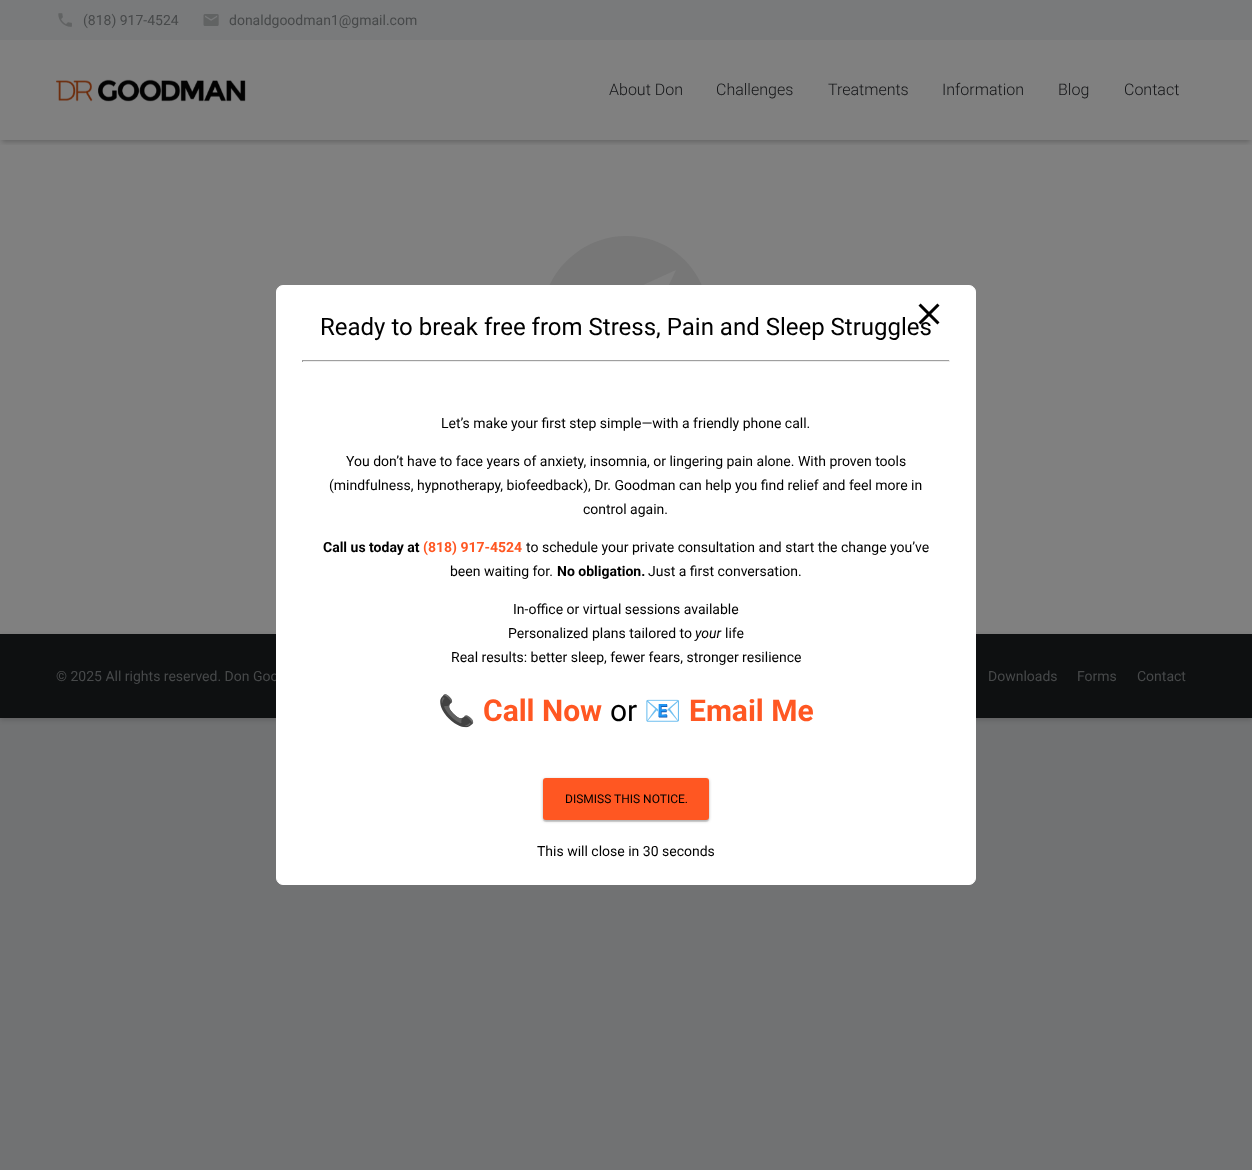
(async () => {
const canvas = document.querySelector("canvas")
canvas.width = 1252
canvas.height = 1170
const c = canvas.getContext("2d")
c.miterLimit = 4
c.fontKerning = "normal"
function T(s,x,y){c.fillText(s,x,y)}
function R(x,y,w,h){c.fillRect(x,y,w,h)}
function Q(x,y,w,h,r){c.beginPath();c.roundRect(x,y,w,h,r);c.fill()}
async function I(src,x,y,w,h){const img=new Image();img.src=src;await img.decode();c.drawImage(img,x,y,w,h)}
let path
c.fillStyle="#717273"
R(0,0,1252,1170)
c.fillStyle="#808080"
R(0,40,1252,594)
c.fillStyle="#797a7b"
R(0,0,1252,40)
await I("1.png",58,13,14,14)
c.font="14px Roboto"
c.fillStyle="#47494a"
T("(818) 917-4524",83,25)
await I("2.png",203,14,16,12)
T("donaldgoodman1@gmail.com",229,25)
c.save()
c.beginPath()
c.rect(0,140,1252,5)
c.clip()
c.fillStyle="#00000038"
c.filter="blur(2.5px)"
c.beginPath()
c.rect(2,46,1248,96)
c.fill()
c.filter="none"
c.restore()
await I("3.png",56,79,190,23)
c.font="300 16px Roboto"
c.fillStyle="#131416"
T("About Don",609,95)
T("Challenges",716,95)
T("Treatments",828,95)
T("Information",942,95)
T("Blog",1058,95)
T("Contact",1124,95)
c.fillStyle="#777"
path = new Path2D("M626 310c-12 0-12 19 0 19c12 0 12-19 0-19zm0-74c-18 0-36 6-50 17c-64 47-30 150 50 150c18 0 36-6 50-17c64-47 30-150-50-150zm18 102l-68 32l32-69l68-31z")
c.fill(path)
c.fillStyle="#00000026"
c.filter="blur(2.5px)"
c.beginPath()
c.rect(0,636,1252,84)
c.fill()
c.filter="none"
c.fillStyle="#0e1011"
R(0,634,1252,84)
c.font="14px Roboto"
c.fillStyle="#47494a"
T("© 2025 All rights reserved. Don Goo",56,681)
c.fillStyle="#fff"
c.beginPath()
c.roundRect(276.5,285.5,699,599,6.5)
c.fill()
c.strokeStyle="#fff"
c.stroke()
c.font="24px Roboto"
c.fillStyle="#000"
T("Ready to break free from Stress, Pain and Sleep Struggles",320,335)
await I("4.png",918,303,22,22)
c.fillStyle="#9f9f9f"
R(302,360,648,1)
c.fillStyle="#eee"
R(949,360,1,2)
R(302,361,648,1)
c.fillStyle="#9f9f9f"
R(302,360,1,2)
c.font="14px Roboto"
c.fillStyle="#000"
T("Let’s make your first step simple—with a friendly phone call.",441,428)
T("You don’t have to face years of anxiety, insomnia, or lingering pain alone. With proven tools",346,466)
T("(mindfulness, hypnotherapy, biofeedback), Dr. Goodman can help you find relief and feel more in",329,490)
T("control again.",583,514)
c.font="bold 14px Roboto"
T("Call us today at",323,552)
c.fillStyle="#ff5722"
T("(818) 917-4524",423,552)
c.font="14px Roboto"
c.fillStyle="#000"
T("to schedule your private consultation and start the change you’ve",526,552)
T("been waiting for.",450,576)
c.font="bold 14px Roboto"
T("No obligation.",557,576)
c.font="14px Roboto"
T("Just a first conversation.",648,576)
T("In-office or virtual sessions available",513,614)
T("Personalized plans tailored to",508,638)
c.font="italic 14px Roboto"
T("your",695,638)
c.font="14px Roboto"
T("life",725,638)
T("Real results: better sleep, fewer fears, stronger resilience",451,662)
c.font="30px Noto Color Emoji"
c.fillStyle="#ff5722"
T("📞",438,721)
c.font="bold 30px Roboto"
T("Call Now",483,721)
c.font="30px Roboto"
c.fillStyle="#000"
T("or",610,721)
c.font="30px Noto Color Emoji"
c.fillStyle="#ff5722"
T("📧",644,721)
c.font="bold 30px Roboto"
T("Email Me",689,721)
c.fillStyle="#0000004d"
c.filter="blur(1.5px)"
c.beginPath()
c.roundRect(543,779,166,42,3)
c.fill()
c.filter="none"
c.fillStyle="#0000001a"
c.filter="blur(0.5px)"
c.beginPath()
c.roundRect(543,780,166,42,3)
c.fill()
c.filter="none"
c.fillStyle="#ff5722"
Q(543,778,166,42,3)
c.font="12px Roboto"
c.fillStyle="#000"
T("DISMISS THIS NOTICE.",565,803)
c.font="14px Roboto"
T("This will close in 30 seconds",537,856)
c.fillStyle="#47494a"
T("Downloads",988,681)
T("Forms",1077,681)
T("Contact",1137,681)
})()
